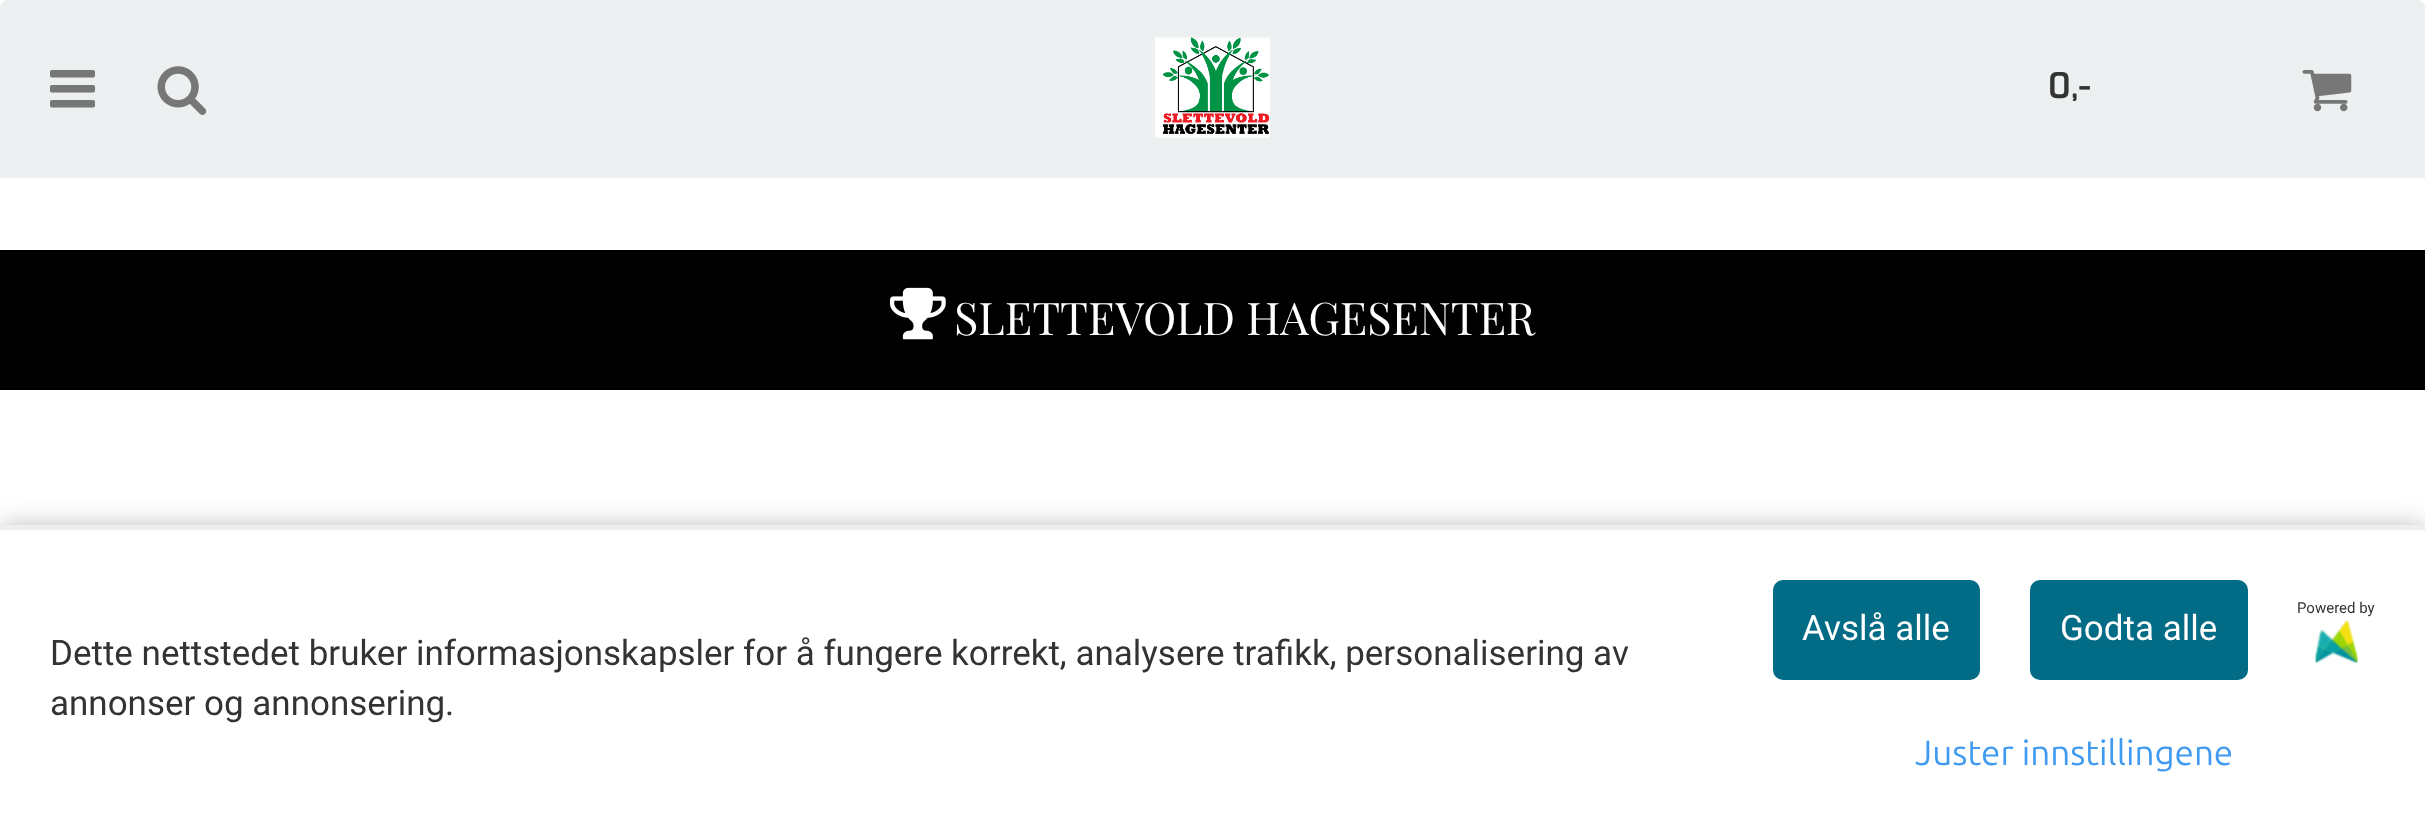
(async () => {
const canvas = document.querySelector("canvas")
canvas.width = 2425
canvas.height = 829
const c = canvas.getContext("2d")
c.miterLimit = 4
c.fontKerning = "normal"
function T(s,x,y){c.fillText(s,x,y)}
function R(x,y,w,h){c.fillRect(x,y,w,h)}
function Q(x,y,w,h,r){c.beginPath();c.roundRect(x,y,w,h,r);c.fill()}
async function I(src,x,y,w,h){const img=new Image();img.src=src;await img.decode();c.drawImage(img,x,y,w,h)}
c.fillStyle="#fff"
R(0,0,2425,829)
c.fillStyle="#ecf0f1"
c.beginPath()
c.roundRect(0,0,2425,178,[8,8,0,0])
c.fill()
await I("1.png",50,70,45,38)
await I("2.png",157,66,50,49)
await I("3.png",1155,37,115,101)
c.font="600 35px Exo"
c.fillStyle="#333"
T("0,-",2048,98)
await I("4.png",2302,70,50,42)
c.fillStyle="#000"
R(0,250,2425,140)
await I("5.png",890,287,56,53)
c.font="45px Playfair Display"
c.fillStyle="#fff"
T("SLETTEVOLD HAGESENTER",954,335)
c.fillStyle="#00000040"
c.filter="blur(12.5px)"
c.beginPath()
c.rect(0,525,2425,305)
c.fill()
c.filter="none"
c.fillStyle="#fff"
R(0,530,2425,299)
c.fillStyle="#eee"
R(0,525,2425,5)
c.font="35px Roboto"
c.fillStyle="#333"
T("Dette nettstedet bruker informasjonskapsler for å fungere korrekt, analysere trafikk, personalisering av",50,665)
T("annonser og annonsering.",50,715)
c.font="15px Roboto"
T("Powered by",2297,613)
await I("6.png",2315,620,43,43)
c.fillStyle="#026b85"
Q(1773,580,207,100,10)
c.font="35px Roboto"
c.fillStyle="#fff"
T("Avslå alle",1802,640)
c.fillStyle="#026b85"
Q(2030,580,218,100,10)
c.fillStyle="#fff"
T("Godta alle",2060,640)
c.font="35px Ubuntu"
c.fillStyle="#409aef"
T("Juster innstillingene",1915,765)
})()
